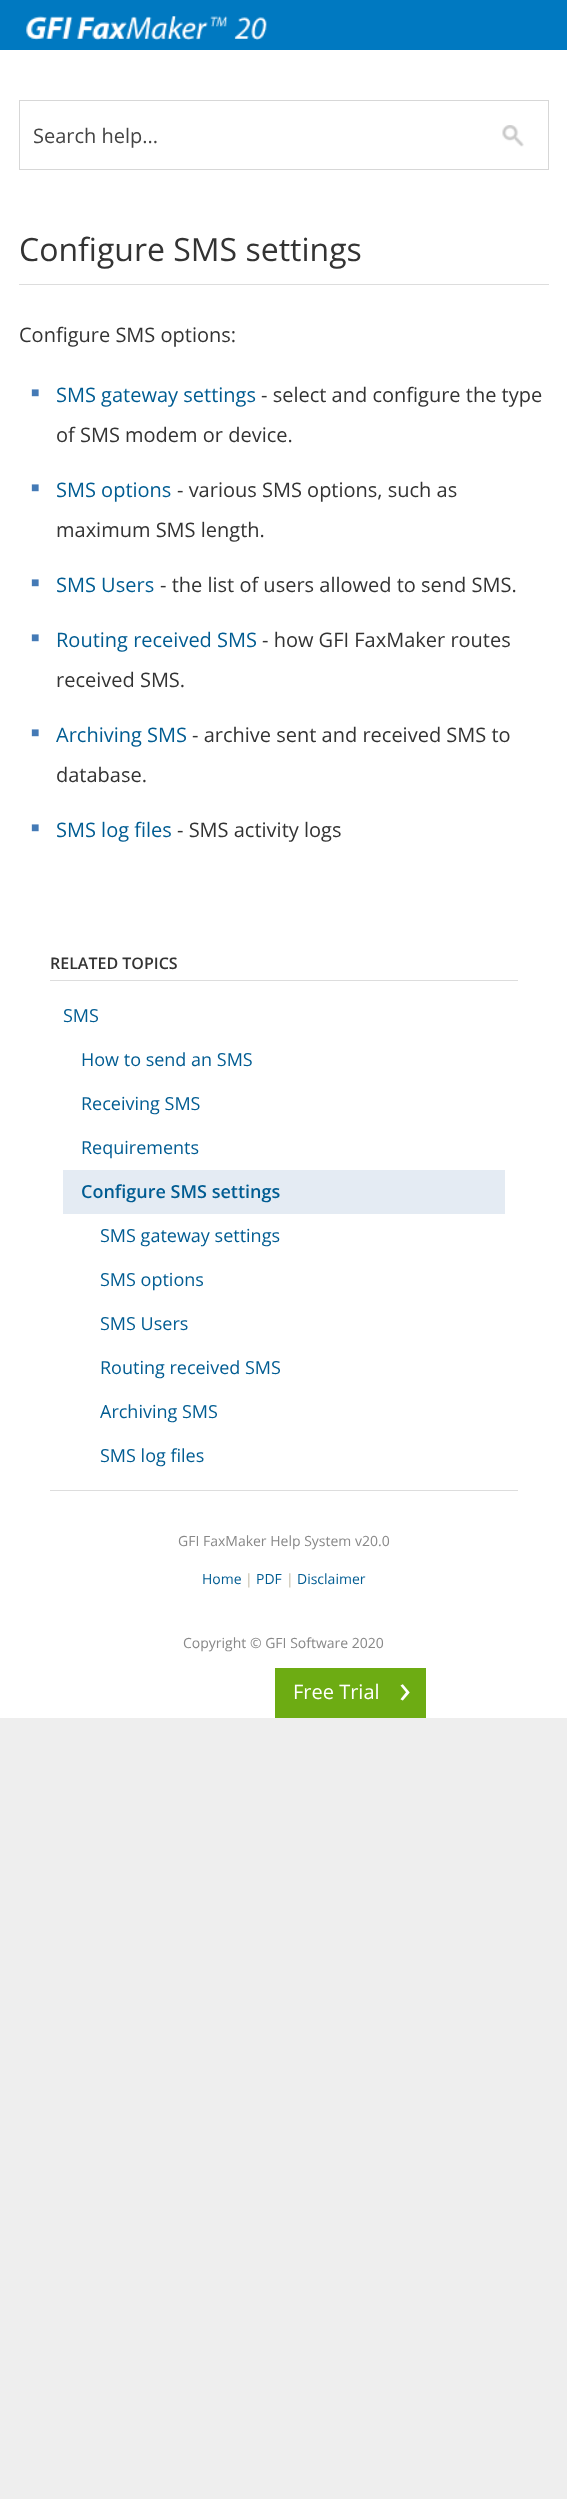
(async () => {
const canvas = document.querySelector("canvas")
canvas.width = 567
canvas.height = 2499
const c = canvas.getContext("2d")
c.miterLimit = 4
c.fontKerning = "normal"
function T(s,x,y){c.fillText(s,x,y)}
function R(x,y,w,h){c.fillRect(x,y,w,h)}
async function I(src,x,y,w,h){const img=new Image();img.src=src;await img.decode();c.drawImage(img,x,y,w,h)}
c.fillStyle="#eee"
R(0,0,567,2499)
c.fillStyle="#0079c1"
R(0,0,567,50)
await I("1.png",26,16,241,24)
c.fillStyle="#fff"
R(0,50,567,1668)
c.strokeStyle="#d7d7d7"
c.strokeRect(19.5,100.5,529,69)
c.font="20px Open Sans"
c.fillStyle="#444"
T("Search help...",33,143)
await I("2.png",502,125,22,22)
c.fillStyle="#ddd"
R(19,284,530,1)
c.font="32px Open Sans"
c.fillStyle="#333"
T("Configure SMS settings",19,261)
c.font="20px Open Sans"
T("Configure SMS options:",19,342)
c.font="14px Liberation Sans"
c.fillStyle="#447ab6"
T("■",31,397)
c.font="20px Open Sans"
c.fillStyle="#005c92"
T("SMS gateway settings",56,402)
c.fillStyle="#333"
T("- select and configure the type",261,402)
T("of SMS modem or device.",56,442)
c.font="14px Liberation Sans"
c.fillStyle="#447ab6"
T("■",31,492)
c.font="20px Open Sans"
c.fillStyle="#005c92"
T("SMS options",56,497)
c.fillStyle="#333"
T("- various SMS options, such as",177,497)
T("maximum SMS length.",56,537)
c.font="14px Liberation Sans"
c.fillStyle="#447ab6"
T("■",31,587)
c.font="20px Open Sans"
c.fillStyle="#005c92"
T("SMS Users",56,592)
c.fillStyle="#333"
T("- the list of users allowed to send SMS.",160,592)
c.font="14px Liberation Sans"
c.fillStyle="#447ab6"
T("■",31,642)
c.font="20px Open Sans"
c.fillStyle="#005c92"
T("Routing received SMS",56,647)
c.fillStyle="#333"
T("- how GFI FaxMaker routes",262,647)
T("received SMS.",56,687)
c.font="14px Liberation Sans"
c.fillStyle="#447ab6"
T("■",31,737)
c.font="20px Open Sans"
c.fillStyle="#005c92"
T("Archiving SMS",56,742)
c.fillStyle="#333"
T("- archive sent and received SMS to",192,742)
T("database.",56,782)
c.font="14px Liberation Sans"
c.fillStyle="#447ab6"
T("■",31,832)
c.font="20px Open Sans"
c.fillStyle="#005c92"
T("SMS log files",56,837)
c.fillStyle="#333"
T("- SMS activity logs",177,837)
c.fillStyle="#ddd"
R(50,1490,468,1)
R(50,980,468,1)
c.font="600 16px Open Sans"
c.fillStyle="#333"
T("RELATED TOPICS",50,969)
c.font="18px Open Sans"
c.fillStyle="#005c92"
T("SMS",63,1022)
T("How to send an SMS",81,1066)
T("Receiving SMS",81,1110)
T("Requirements",81,1154)
c.fillStyle="#e4ebf3"
R(63,1170,442,44)
c.font="600 18px Open Sans"
c.fillStyle="#005c92"
T("Configure SMS settings",81,1198)
c.font="18px Open Sans"
T("SMS gateway settings",100,1242)
T("SMS options",100,1286)
T("SMS Users",100,1330)
T("Routing received SMS",100,1374)
T("Archiving SMS",100,1418)
T("SMS log files",100,1462)
c.font="14px Open Sans"
c.fillStyle="#888"
T("GFI FaxMaker Help System v20.0",178,1546)
c.fillStyle="#005c92"
T("Home",202,1584)
c.fillStyle="#c0baa5"
T("|",245,1584)
c.fillStyle="#005c92"
T("PDF",256,1584)
c.fillStyle="#c0baa5"
T("|",286,1584)
c.fillStyle="#005c92"
T("Disclaimer",297,1584)
c.fillStyle="#888"
T("Copyright © GFI Software 2020",183,1648)
c.fillStyle="#6dac13"
R(275,1668,151,50)
c.font="20px Open Sans"
c.fillStyle="#fff"
T("Free Trial",293,1699)
c.font="40px Open Sans"
T("›",399,1703)
})()
